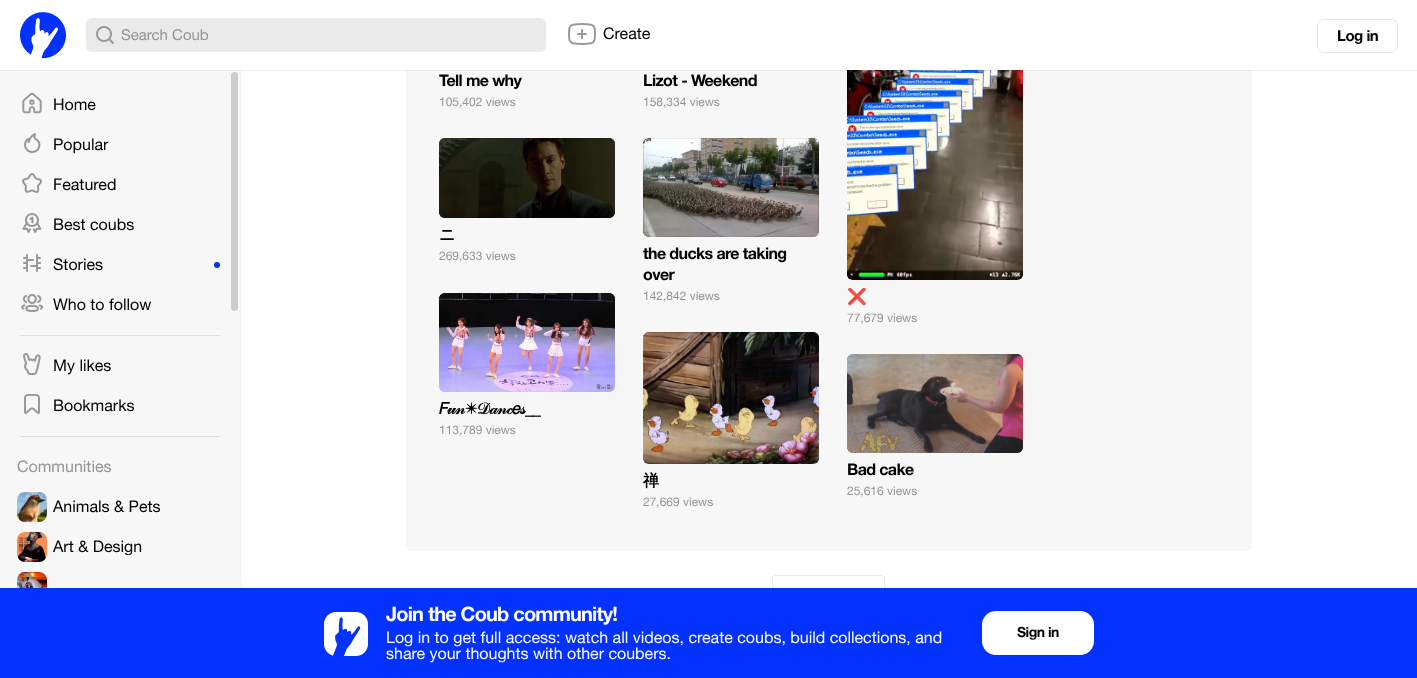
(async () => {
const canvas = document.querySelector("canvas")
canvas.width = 1417
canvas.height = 678
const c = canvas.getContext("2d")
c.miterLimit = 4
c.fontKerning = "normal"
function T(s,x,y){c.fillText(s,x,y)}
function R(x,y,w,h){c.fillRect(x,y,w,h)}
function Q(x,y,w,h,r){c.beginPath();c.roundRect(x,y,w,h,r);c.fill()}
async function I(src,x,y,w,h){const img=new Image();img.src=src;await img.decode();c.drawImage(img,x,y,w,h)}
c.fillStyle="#fff"
R(0,0,1417,678)
c.strokeStyle="#f2f2f2"
c.strokeRect(-.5,-.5,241,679)
c.fillStyle="#f7f7f7"
R(0,70,240,518)
Q(406,-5,846,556,5)
await I("20.png",847,274,176,6)
await I("19.png",847,70,176,209)
c.fillStyle="#0000000d"
R(0,70,1417,1)
c.fillStyle="#fff"
R(240,0,1012,70)
await I("1.png",20,12,46,47)
c.fillStyle="#eaeaea"
Q(86,18,460,34,6)
await I("2.png",96,26,18,18)
c.font="15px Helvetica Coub"
c.fillStyle="#949494"
T("Search Coub",121,40)
await I("3.png",568,23,28,22)
c.font="16px Helvetica Coub"
c.fillStyle="#000"
T("Create",603,39)
c.beginPath()
c.roundRect(1317.5,19.5,80,33,6.5)
c.strokeStyle="#e6e6e6"
c.stroke()
c.fillStyle="#fff"
Q(1318,20,79,32,6)
c.letterSpacing="-0.5px"
c.font="bold 15px Helvetica Coub"
c.fillStyle="#000"
T("Log in",1337,41)
await I("4.png",22,92,20,22)
c.letterSpacing="0px"
c.font="16px Helvetica Coub"
T("Home",53,110)
await I("5.png",24,133,17,20)
T("Popular",53,150)
await I("6.png",22,173,20,20)
T("Featured",53,190)
await I("7.png",22,213,20,20)
T("Best coubs",53,230)
await I("8.png",23,254,18,18)
T("Stories",53,270)
c.fillStyle="#0332ff"
c.beginPath()
c.arc(217,265,3,0,7)
c.fill()
await I("9.png",21,294,22,18)
c.fillStyle="#000"
T("Who to follow",53,310)
c.fillStyle="#dedede"
R(20,335,200,1)
await I("10.png",23,353,18,22)
c.fillStyle="#000"
T("My likes",53,371)
await I("11.png",24,394,16,20)
T("Bookmarks",53,411)
c.fillStyle="#dedede"
R(20,436,200,1)
c.fillStyle="#949494"
T("Communities",17,472)
await I("12.png",17,492,30,30)
c.fillStyle="#000"
T("Animals & Pets",53,512)
await I("13.png",17,532,30,30)
c.save()
c.beginPath()
c.rect(53,539,89,16)
c.clip()
T("Art & Design",53,552)
c.restore()
await I("14.png",17,572,30,16)
c.fillStyle="#ccc"
Q(231,72,7,239,3.5)
c.save()
c.beginPath()
c.rect(439,71,176,21)
c.clip()
c.letterSpacing="-0.6px"
c.font="bold 16px Helvetica Coub"
c.fillStyle="#000"
T("Tell me why",439,86)
c.restore()
c.font="12px Helvetica Coub"
c.fillStyle="#949494"
T("105,402 views",439,106)
c.letterSpacing="-0.6px"
c.font="bold 16px Helvetica Coub"
c.fillStyle="#000"
T("Lizot - Weekend",643,86)
c.letterSpacing="0px"
c.font="12px Helvetica Coub"
c.fillStyle="#949494"
T("158,334 views",643,106)
await I("15.png",439,138,176,80)
await I("16.png",439,138,176,80)
c.letterSpacing="-0.6px"
c.font="bold 16px WenQuanYi Zen Hei"
c.fillStyle="#000"
T("ニ",439,240)
c.letterSpacing="0px"
c.font="12px Helvetica Coub"
c.fillStyle="#949494"
T("269,633 views",439,260)
await I("17.png",643,138,176,99)
await I("18.png",643,138,176,99)
c.save()
c.beginPath()
c.rect(643,244,176,42)
c.clip()
c.letterSpacing="-0.6px"
c.font="bold 16px Helvetica Coub"
c.fillStyle="#000"
T("the ducks are taking",643,259)
c.restore()
c.letterSpacing="-0.6px"
c.font="bold 16px Helvetica Coub"
c.fillStyle="#000"
T("over",643,280)
c.letterSpacing="0px"
c.font="12px Helvetica Coub"
c.fillStyle="#949494"
T("142,842 views",643,300)
c.save()
c.beginPath()
c.rect(847,287,176,21)
c.clip()
c.letterSpacing="-0.6px"
c.font="bold 16px Noto Color Emoji"
c.fillStyle="#000"
T("❌",847,302)
c.restore()
T("77,679 views",847,322)
await I("21.png",439,293,176,99)
await I("22.png",439,293,176,99)
c.letterSpacing="-0.6px"
c.font="bold 16px FreeSans"
c.fillStyle="#000"
T("𝐹",439,414)
c.font="bold 16px FreeSerif"
T("𝓊𝓃",447,414)
c.font="bold 16px FreeSans"
T("✴",465,414)
c.font="bold 16px FreeSerif"
T("𝒟𝒶𝓃𝒸",477,414)
c.font="bold 16px FreeSans"
T("𝑒",512,414)
c.font="bold 16px FreeSerif"
T("𝓈",520,414)
c.font="bold 16px FreeSans"
T("__",525,414)
c.letterSpacing="0px"
c.font="12px Helvetica Coub"
c.fillStyle="#949494"
T("113,789 views",439,434)
await I("23.png",643,332,176,132)
await I("24.png",643,332,176,131)
c.letterSpacing="-0.6px"
c.font="bold 16px WenQuanYi Zen Hei"
c.fillStyle="#000"
T("禅",643,486)
c.letterSpacing="0px"
c.font="12px Helvetica Coub"
c.fillStyle="#949494"
T("27,669 views",643,506)
await I("25.png",847,354,176,99)
await I("26.png",847,354,176,99)
c.letterSpacing="-0.6px"
c.font="bold 16px Helvetica Coub"
c.fillStyle="#000"
T("Bad cake",847,475)
c.letterSpacing="0px"
c.font="12px Helvetica Coub"
c.fillStyle="#949494"
T("25,616 views",847,495)
c.beginPath()
c.roundRect(772.5,575.5,112,26,3.5)
c.stroke()
c.fillStyle="#fff"
Q(773,576,111,25,3)
c.fillStyle="#0332ff"
R(0,588,1417,90)
await I("27.png",324,612,44,44)
c.letterSpacing="-0.8px"
c.font="bold 20px Helvetica Coub"
c.fillStyle="#fff"
T("Join the Coub community!",386,621)
c.letterSpacing="0px"
c.font="16px Helvetica Coub"
T("Log in to get full access: watch all videos, create coubs, build collections, and",386,643)
T("share your thoughts with other coubers.",386,659)
Q(982,611,112,44,14)
c.letterSpacing="-0.5px"
c.font="bold 14px Helvetica Coub"
c.fillStyle="#000"
T("Sign in",1017,637)
})()
